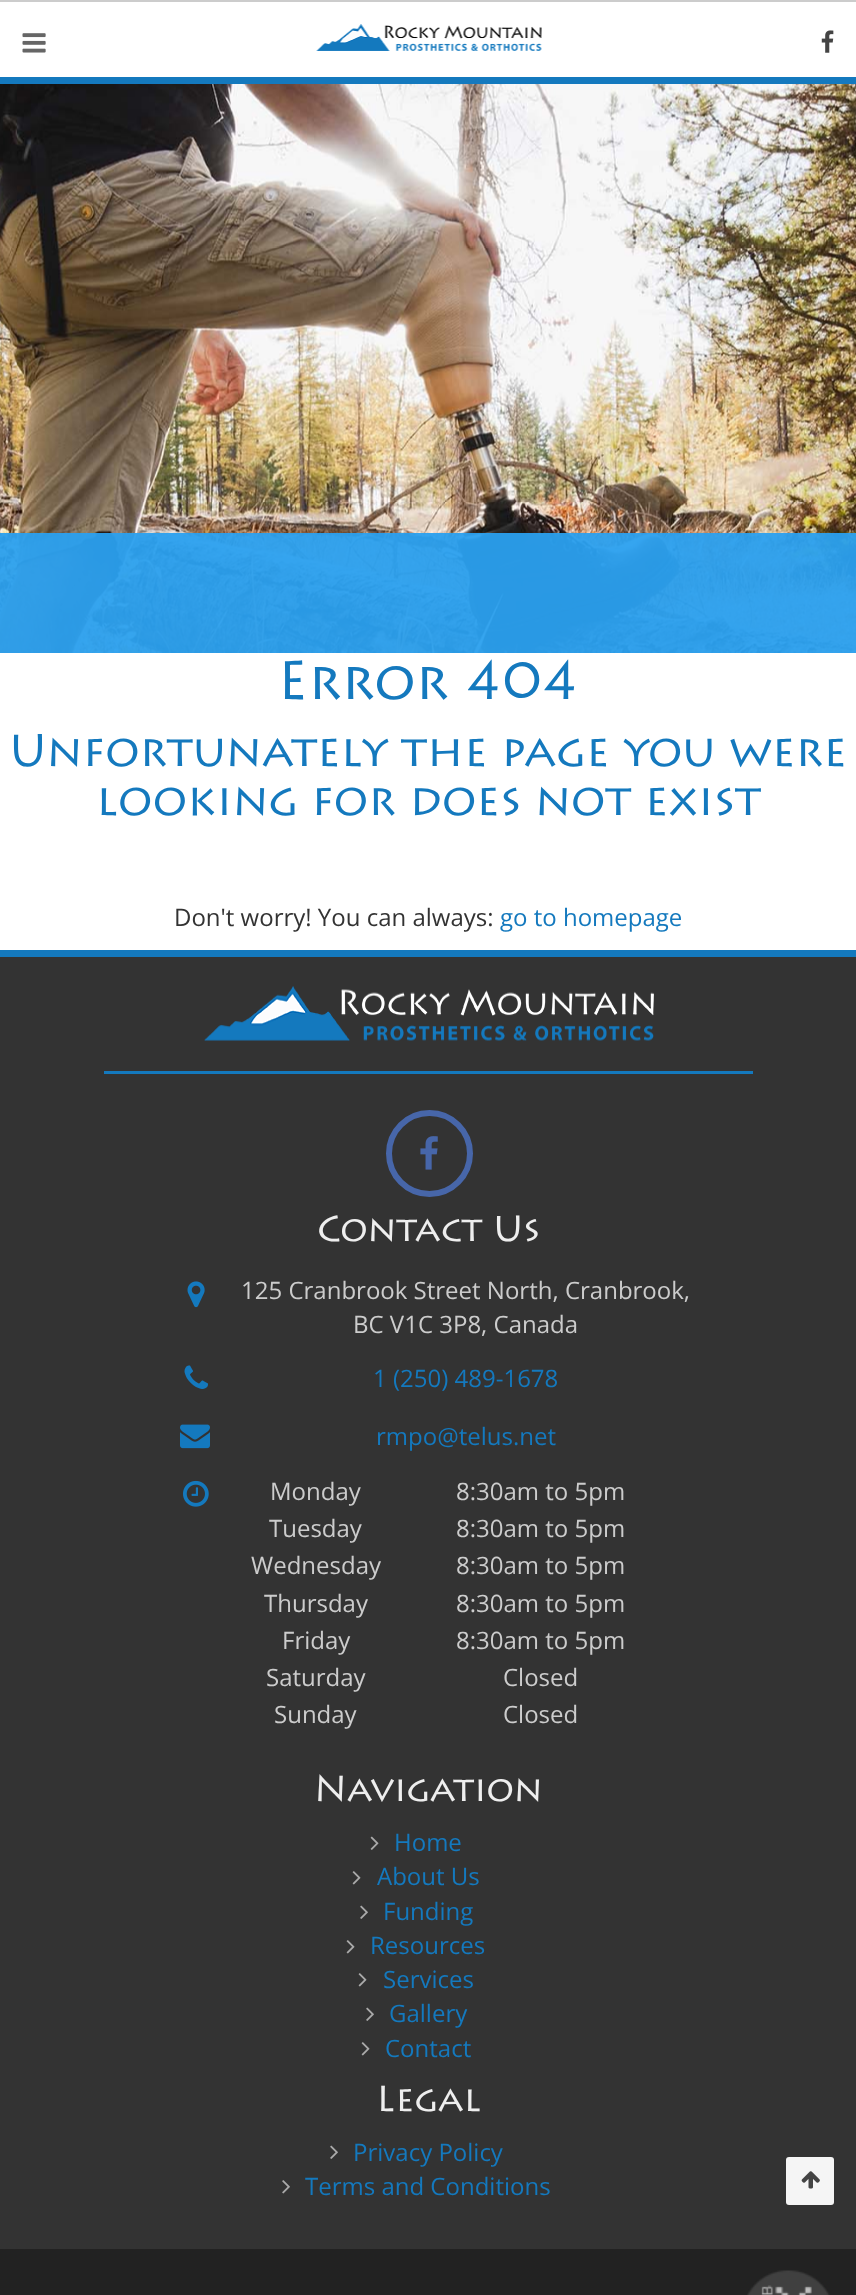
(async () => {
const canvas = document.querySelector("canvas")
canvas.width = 856
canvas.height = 2295
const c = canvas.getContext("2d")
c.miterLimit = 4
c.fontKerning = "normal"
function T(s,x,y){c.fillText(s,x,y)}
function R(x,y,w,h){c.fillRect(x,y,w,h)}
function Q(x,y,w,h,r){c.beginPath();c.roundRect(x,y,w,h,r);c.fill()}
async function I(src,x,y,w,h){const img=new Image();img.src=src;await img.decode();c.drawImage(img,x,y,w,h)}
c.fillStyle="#fff"
R(0,0,856,2295)
await I("1.png",0,84,856,569)
c.fillStyle="#ccc"
R(0,0,856,2)
c.fillStyle="#1479be"
R(0,77,856,7)
await I("2.png",22,33,24,20)
await I("3.png",316,24,226,27)
await I("4.png",821,30,13,23)
c.fillStyle="#2aa0eff2"
R(0,533,856,120)
c.font="54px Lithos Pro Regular"
c.fillStyle="#1479be"
T("Error 404",277,699)
c.font="45px Lithos Pro Regular"
T("Unfortunately the page you were",9,766)
T("looking for does not exist",96,815)
c.font="24px Open Sans"
c.fillStyle="#333"
T("Don't worry! You can always:",174,926)
c.fillStyle="#1479be"
T("go to homepage",500,926)
c.fillStyle="#333"
R(0,957,856,1292)
c.fillStyle="#1479be"
R(0,950,856,7)
await I("5.png",204,986,450,55)
R(104,1071,649,3)
c.beginPath()
c.arc(429.5,1153.5,40.5,0,7)
c.strokeStyle="#4766a9"
c.lineWidth=6
c.stroke()
await I("6.png",420,1136,18,34)
c.font="36px Lithos Pro Regular"
c.fillStyle="#eee"
T("Contact Us",317,1241)
await I("7.png",187,1281,18,27)
c.font="24px Open Sans"
c.fillStyle="#ccc"
T("125 Cranbrook Street North, Cranbrook,",241,1299)
T("BC V1C 3P8, Canada",353,1333)
await I("8.png",184,1365,24,24)
c.fillStyle="#1479be"
T("1 (250) 489-1678",373,1387)
await I("9.png",180,1424,30,25)
T("rmpo@telus.net",376,1445)
await I("10.png",183,1480,26,27)
c.fillStyle="#ccc"
T("Monday",270,1500)
T("8:30am to 5pm",456,1500)
T("Tuesday",269,1537)
T("8:30am to 5pm",456,1537)
T("Wednesday",251,1574)
T("8:30am to 5pm",456,1574)
T("Thursday",264,1612)
T("8:30am to 5pm",456,1612)
T("Friday",282,1649)
T("8:30am to 5pm",456,1649)
T("Saturday",266,1686)
T("Closed",503,1686)
T("Sunday",274,1723)
T("Closed",503,1723)
c.font="36px Lithos Pro Regular"
c.fillStyle="#eee"
T("Navigation",314,1801)
await I("11.png",370,1836,9,14)
c.font="24px Open Sans"
c.fillStyle="#1479be"
T("Home",394,1851)
await I("12.png",352,1871,9,14)
T("About Us",377,1885)
await I("13.png",360,1905,8,14)
T("Funding",383,1920)
await I("12.png",346,1940,9,14)
T("Resources",370,1954)
await I("12.png",358,1973,9,14)
T("Services",383,1988)
await I("13.png",366,2007,8,14)
T("Gallery",389,2022)
await I("12.png",361,2042,9,14)
T("Contact",385,2057)
c.font="36px Lithos Pro Regular"
c.fillStyle="#eee"
T("Legal",376,2111)
await I("13.png",330,2145,8,14)
c.font="24px Open Sans"
c.fillStyle="#1479be"
T("Privacy Policy",353,2161)
await I("14.png",282,2180,8,14)
T("Terms and Conditions",305,2195)
c.fillStyle="#222"
R(0,2249,856,46)
await I("15.png",747,2270,83,25)
c.fillStyle="#f5f5f5"
Q(786,2157,48,48,3)
await I("16.png",801,2171,19,18)
})()
